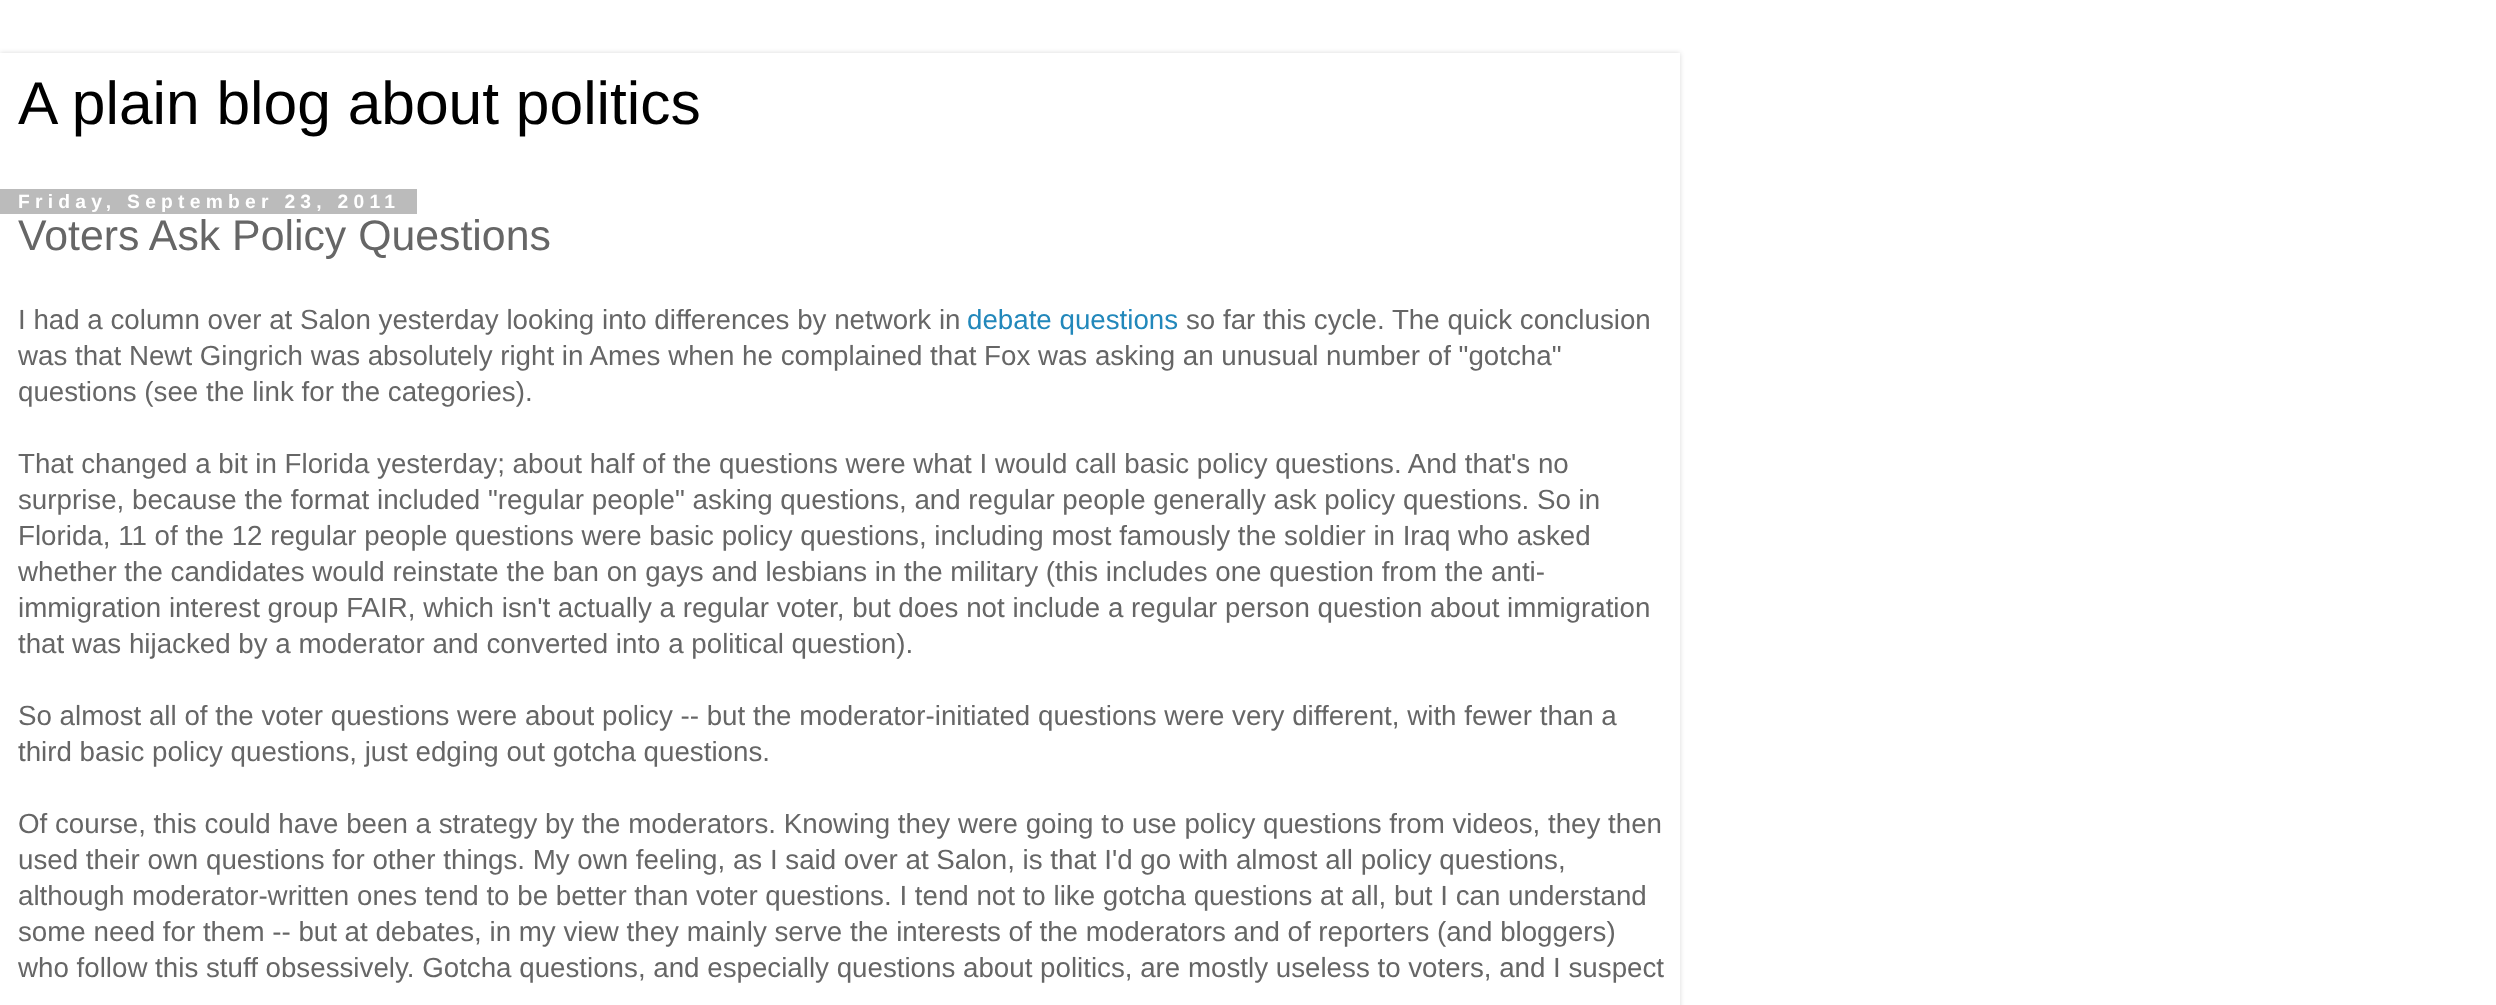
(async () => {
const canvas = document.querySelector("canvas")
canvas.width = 2496
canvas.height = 1005
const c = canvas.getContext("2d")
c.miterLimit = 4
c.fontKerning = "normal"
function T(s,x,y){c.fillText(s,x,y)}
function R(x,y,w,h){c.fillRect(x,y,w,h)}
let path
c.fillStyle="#fff"
R(0,0,2496,1005)
c.save()
path = new Path2D("M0 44h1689v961h-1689zm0 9h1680v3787h-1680z")
c.clip(path,"evenodd")
c.fillStyle="#00000026"
c.filter="blur(2.5px)"
c.beginPath()
c.rect(0,53,1680,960)
c.fill()
c.filter="none"
c.restore()
c.font="60.5px Liberation Sans"
c.fillStyle="#000"
T("A plain blog about politics",18,124)
c.fillStyle="#bbb"
R(0,189,417,25)
c.letterSpacing="5.25px"
c.font="bold 19.25px Liberation Sans"
c.fillStyle="#fff"
T("Friday, September 23, 2011",18,208)
c.letterSpacing="0px"
c.font="42.8px Liberation Sans"
c.fillStyle="#666"
T("Voters Ask Policy Questions",18,250)
c.font="27.72px Liberation Sans"
T("I had a column over at Salon yesterday looking into differences by network in",18,329)
c.fillStyle="#28b"
T("debate questions",967,329)
c.fillStyle="#666"
T("so far this cycle. The quick conclusion",1186,329)
T("was that Newt Gingrich was absolutely right in Ames when he complained that Fox was asking an unusual number of \"gotcha\"",18,365)
T("questions (see the link for the categories).",18,401)
T("That changed a bit in Florida yesterday; about half of the questions were what I would call basic policy questions. And that's no",18,473)
T("surprise, because the format included \"regular people\" asking questions, and regular people generally ask policy questions. So in",18,509)
T("Florida, 11 of the 12 regular people questions were basic policy questions, including most famously the soldier in Iraq who asked",18,545)
T("whether the candidates would reinstate the ban on gays and lesbians in the military (this includes one question from the anti-",18,581)
T("immigration interest group FAIR, which isn't actually a regular voter, but does not include a regular person question about immigration",18,617)
T("that was hijacked by a moderator and converted into a political question).",18,653)
T("So almost all of the voter questions were about policy -- but the moderator-initiated questions were very different, with fewer than a",18,725)
T("third basic policy questions, just edging out gotcha questions.",18,761)
T("Of course, this could have been a strategy by the moderators. Knowing they were going to use policy questions from videos, they then",18,833)
T("used their own questions for other things. My own feeling, as I said over at Salon, is that I'd go with almost all policy questions,",18,869)
T("although moderator-written ones tend to be better than voter questions. I tend not to like gotcha questions at all, but I can understand",18,905)
T("some need for them -- but at debates, in my view they mainly serve the interests of the moderators and of reporters (and bloggers)",18,941)
T("who follow this stuff obsessively. Gotcha questions, and especially questions about politics, are mostly useless to voters, and I suspect",18,977)
})()
